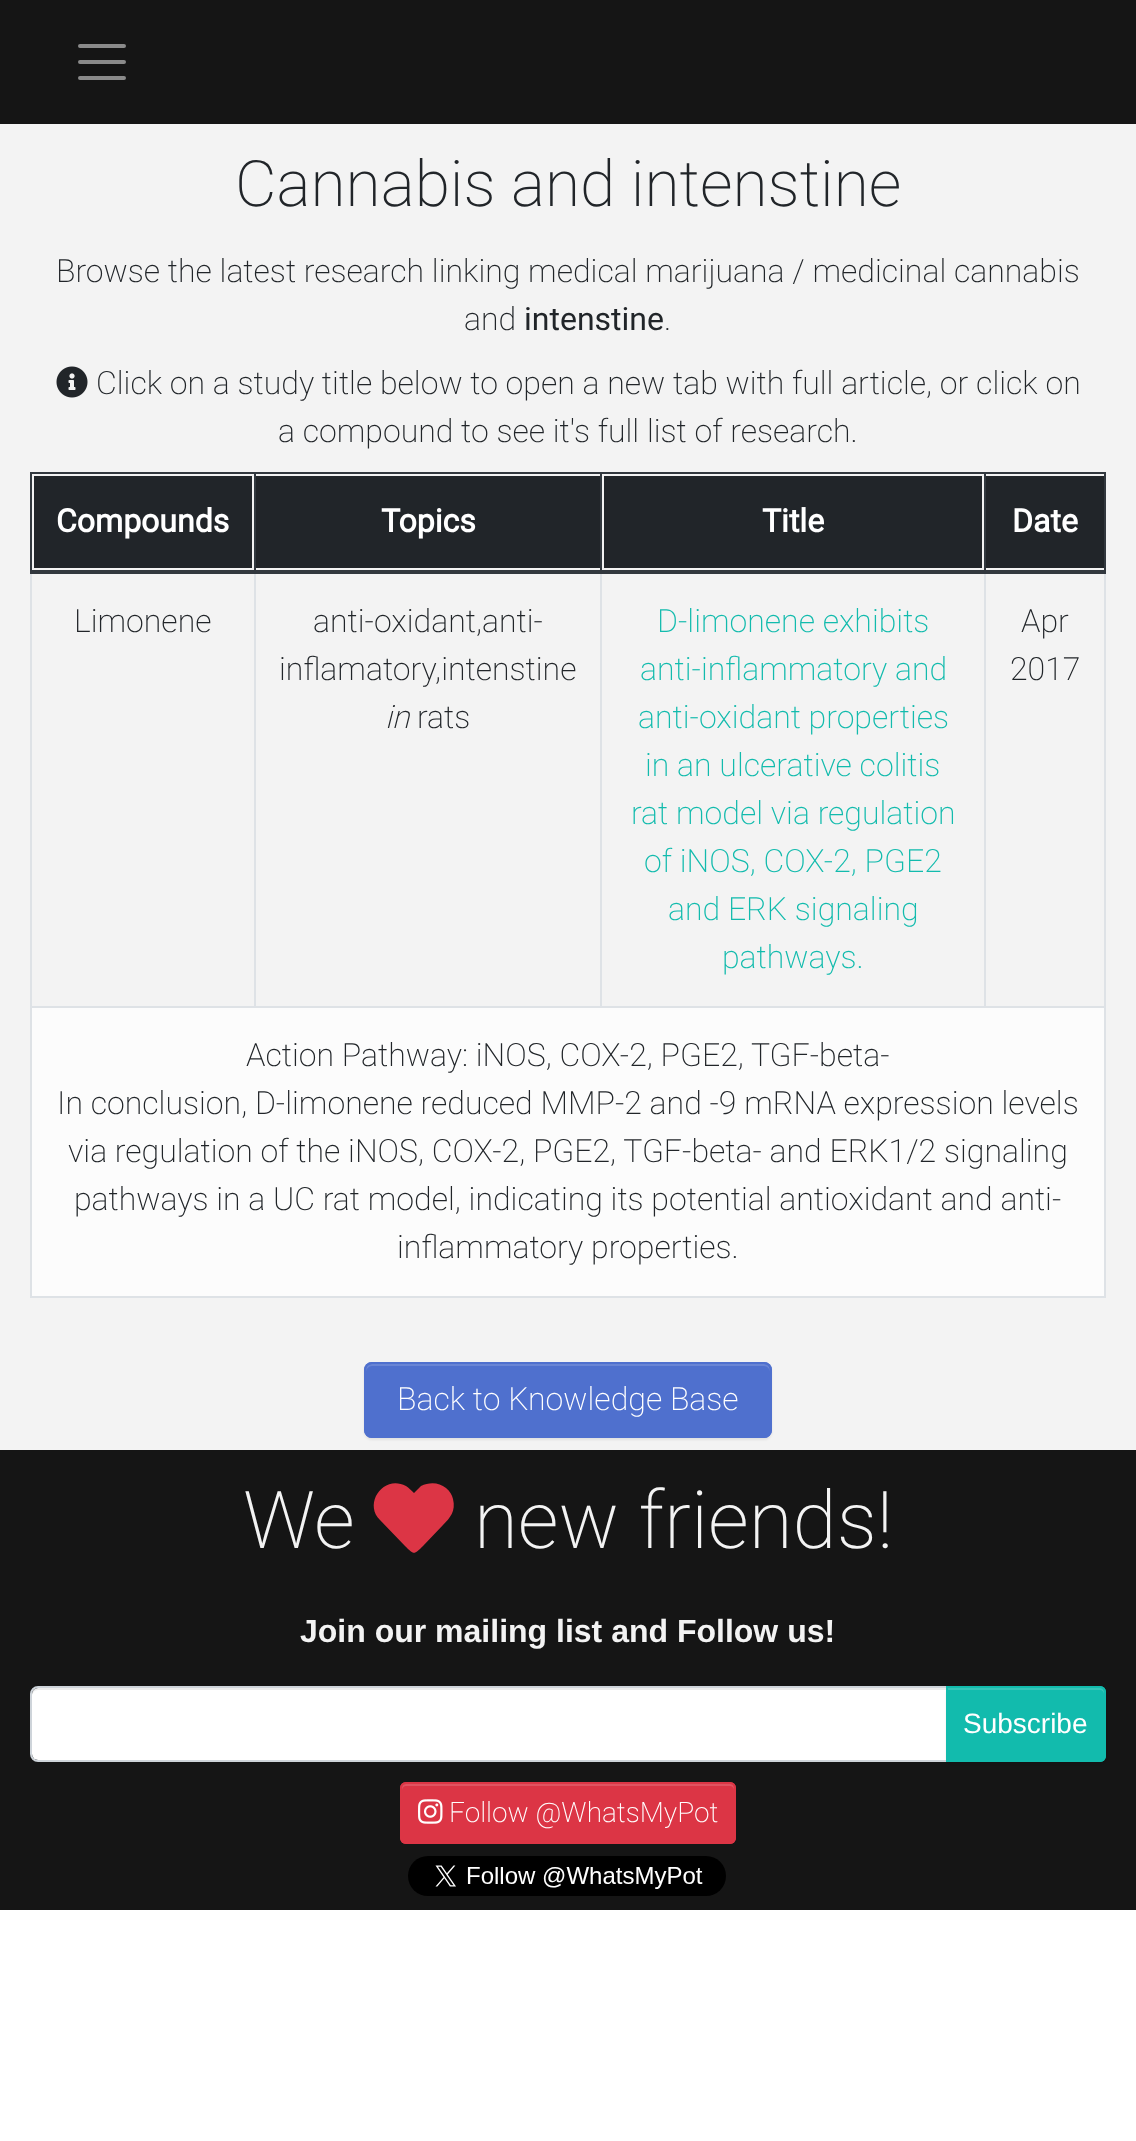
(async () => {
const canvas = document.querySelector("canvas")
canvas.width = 1136
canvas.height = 2141
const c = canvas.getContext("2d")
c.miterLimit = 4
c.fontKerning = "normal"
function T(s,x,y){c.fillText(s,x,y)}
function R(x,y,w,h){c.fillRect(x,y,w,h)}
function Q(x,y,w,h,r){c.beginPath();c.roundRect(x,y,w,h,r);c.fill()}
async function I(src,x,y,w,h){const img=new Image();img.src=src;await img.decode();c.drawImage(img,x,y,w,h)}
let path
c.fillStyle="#fff"
R(0,0,1136,2141)
c.fillStyle="#151515"
R(0,0,1136,124)
path = new Path2D("M80 46h44m-44 16h44m-44 16h44")
c.strokeStyle="#8a8a8a"
c.lineWidth=4
c.lineCap="round"
c.stroke(path)
c.fillStyle="#f3f3f3"
R(0,124,1136,1326)
c.font="200 64px Roboto"
c.fillStyle="#212529"
T("Cannabis and intenstine",235,206)
c.font="200 32px Roboto"
T("Browse the latest research linking medical marijuana / medicinal cannabis",56,282)
T("and",464,330)
c.font="32px Roboto"
T("intenstine",524,330)
c.font="200 32px Roboto"
T(".",664,330)
await I("1.png",56,366,32,32)
T("Click on a study title below to open a new tab with full article, or click on",96,394)
T("a compound to see it's full list of research.",278,442)
R(34,476,218,92)
c.fillStyle="#32383e"
R(984,472,122,2)
c.fillStyle="#dee2e6"
R(30,1006,1076,2)
R(984,572,2,436)
c.fillStyle="#32383e"
R(984,472,2,102)
R(600,472,386,2)
c.fillStyle="#dee2e6"
R(600,572,2,436)
c.fillStyle="#32383e"
R(600,472,2,102)
R(254,472,348,2)
c.fillStyle="#dee2e6"
R(254,572,2,436)
c.fillStyle="#32383e"
R(254,472,2,102)
R(30,472,226,2)
c.fillStyle="#dee2e6"
R(1104,572,2,726)
R(30,1296,1076,2)
R(30,572,2,726)
c.fillStyle="#32383e"
R(30,472,2,102)
c.font="bold 32px Roboto"
c.fillStyle="#fff"
T("Compounds",56,532)
c.fillStyle="#212529"
R(256,476,344,92)
c.fillStyle="#fff"
T("Topics",381,532)
c.fillStyle="#212529"
R(604,476,378,92)
c.fillStyle="#fff"
T("Title",762,532)
c.fillStyle="#212529"
R(986,476,118,92)
c.fillStyle="#32383e"
R(1104,472,2,102)
R(30,570,1076,4)
c.fillStyle="#fff"
T("Date",1012,532)
c.font="200 32px Roboto"
c.fillStyle="#212529"
T("Limonene",74,632)
T("anti-oxidant,anti-",313,632)
T("inflamatory,intenstine",279,680)
c.font="italic 200 32px Roboto"
T("in",385,728)
c.font="200 32px Roboto"
T("rats",417,728)
c.fillStyle="#12bbad"
T("D-limonene exhibits",657,632)
T("anti-inflammatory and",640,680)
T("anti-oxidant properties",638,728)
T("in an ulcerative colitis",645,776)
T("rat model via regulation",631,824)
T("of iNOS, COX-2, PGE2",644,872)
T("and ERK signaling",668,920)
T("pathways.",722,968)
c.fillStyle="#212529"
T("Apr",1021,632)
T("2017",1010,680)
c.fillStyle="#fcfcfc"
R(32,1008,1072,288)
c.fillStyle="#212529"
T("Action Pathway: iNOS, COX-2, PGE2, TGF-beta-",246,1066)
T("In conclusion, D-limonene reduced MMP-2 and -9 mRNA expression levels",57,1114)
T("via regulation of the iNOS, COX-2, PGE2, TGF-beta- and ERK1/2 signaling",68,1162)
T("pathways in a UC rat model, indicating its potential antioxidant and anti-",74,1210)
T("inflammatory properties.",397,1258)
c.fillStyle="#00000012"
c.filter="blur(1px)"
c.beginPath()
c.roundRect(364,1364,408,76,8)
c.fill()
c.filter="none"
c.fillStyle="#4f70ce"
Q(364,1362,408,76,8)
c.fillStyle="#6985d5"
path = new Path2D("M372 1366h392c3 0 6 3 6 6c0-4-1-8-6-8h-392c-5 0-6 4-6 8c0-3 3-6 6-6z")
c.fill(path)
c.beginPath()
c.roundRect(365,1363,406,74,7)
c.strokeStyle="#4f70ce"
c.lineWidth=2
c.stroke()
c.fillStyle="#fff"
T("Back to Knowledge Base",397,1410)
c.fillStyle="#151515"
R(0,1450,1136,460)
c.font="200 80px Roboto"
c.fillStyle="#f3f3f3"
T("We",243,1548)
c.fillStyle="#dc3545"
path = new Path2D("M446 1488c-7-6-17-6-25-2l-7 7c-3-3-5-5-8-7c-22-12-43 17-26 34l25 26c9 9 9 9 18 0l20-21c7-7 13-14 10-26c-1-4-3-8-7-11z")
c.fill(path)
c.fillStyle="#f3f3f3"
T("new friends!",474,1548)
c.font="bold 32px Liberation Sans"
T("Join our mailing list and Follow us!",300,1642)
c.fillStyle="#fff"
c.beginPath()
c.roundRect(32,1688,914,72,[6,0,0,6])
c.fill()
c.fillStyle="#00000012"
path = new Path2D("M38 1690h908v-2h-908c-5 0-6 4-6 8c0-3 3-6 6-6z")
c.fill(path)
c.beginPath()
c.roundRect(31,1687,916,74,[7,0,0,7])
c.strokeStyle="#ced4da"
c.stroke()
c.filter="blur(1px)"
c.beginPath()
c.roundRect(946,1688,160,76,6)
c.fill()
c.filter="none"
c.fillStyle="#12bbad"
c.beginPath()
c.roundRect(946,1686,160,76,[0,6,6,0])
c.fill()
c.fillStyle="#36c5b9"
path = new Path2D("M948 1690h152c2 0 4 2 4 4v-2c0-2-2-4-4-4h-152z")
c.fill(path)
c.beginPath()
c.roundRect(947,1687,158,74,[0,5,5,0])
c.strokeStyle="#12bbad"
c.stroke()
c.font="28px Liberation Sans"
c.fillStyle="#fff"
T("Subscribe",963,1733)
c.fillStyle="#dc3545"
Q(400,1782,336,62,6)
c.fillStyle="#e15361"
path = new Path2D("M406 1786h324c2 0 4 2 4 4c0-3 0-6-4-6h-324c-4 0-4 3-4 6c0-2 2-4 4-4z")
c.fill(path)
c.beginPath()
c.roundRect(401,1783,334,60,5)
c.strokeStyle="#dc3545"
c.stroke()
await I("2.png",418,1799,25,25)
c.font="200 28px Roboto"
c.fillStyle="#fff"
T("Follow @WhatsMyPot",449,1822)
await I("3.png",408,1856,318,40)
})()
